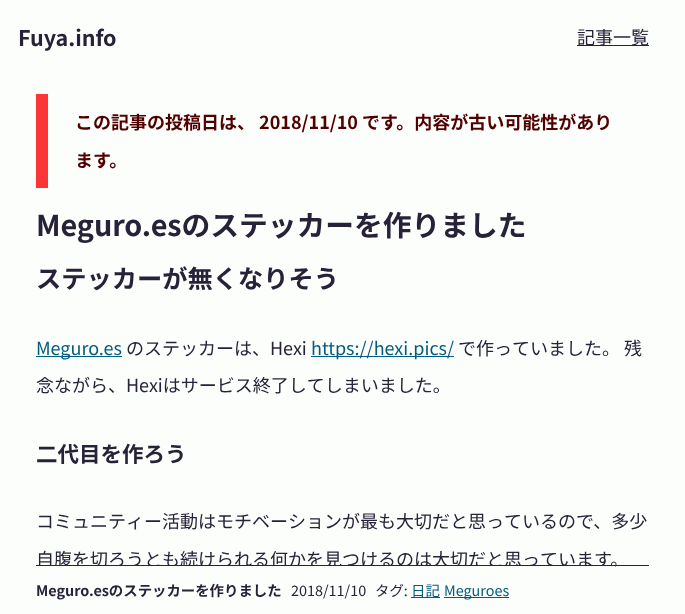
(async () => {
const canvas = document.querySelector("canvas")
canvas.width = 685
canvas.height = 614
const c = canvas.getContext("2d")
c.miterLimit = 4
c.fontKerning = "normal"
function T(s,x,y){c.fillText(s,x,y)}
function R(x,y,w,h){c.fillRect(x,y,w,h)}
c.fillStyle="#fcfefc"
R(0,0,685,614)
c.font="bold 21.5px Noto Sans JP"
c.fillStyle="#282238"
T("Fuya.info",18,46)
R(577,45,72,1)
c.font="18px Noto Sans JP"
T("記事一覧",577,44)
c.fillStyle="#fc3636"
R(36,94,12,94)
c.font="bold 18px Noto Sans JP"
c.fillStyle="#510000"
T("この記事の投稿日は、 2018/11/10 です。内容が古い可能性があり",75,129)
T("ます。",75,167)
c.font="bold 28.75px Noto Sans JP"
c.fillStyle="#282238"
T("Meguro.esのステッカーを作りました",36,236)
c.font="bold 25.25px Noto Sans JP"
T("ステッカーが無くなりそう",36,288)
c.fillStyle="#035b7e"
R(36,356,86,1)
c.font="18px Noto Sans JP"
T("Meguro.es",36,355)
c.fillStyle="#282238"
T("のステッカーは、Hexi",126,355)
c.fillStyle="#035b7e"
R(311,356,143,1)
T("https://hexi.pics/",311,355)
c.fillStyle="#282238"
T("で作っていました。 残",458,355)
T("念ながら、Hexiはサービス終了してしまいました。",36,392)
c.font="bold 21.5px Noto Sans JP"
T("二代目を作ろう",36,462)
c.font="18px Noto Sans JP"
T("コミュニティー活動はモチベーションが最も大切だと思っているので、多少",36,528)
T("自腹を切ろうとも続けられる何かを見つけるのは大切だと思っています。",36,566)
c.fillStyle="#fcfefc"
R(38,566,577,2)
c.fillStyle="#282238"
R(36,565,613,1)
c.font="bold 14.4px Noto Sans JP"
T("Meguro.esのステッカーを作りました",36,596)
c.font="14.4px Noto Sans JP"
T("2018/11/10",291,596)
T("タグ:",375,596)
c.fillStyle="#035b7e"
T("日記",411,596)
R(411,597,29,1)
R(444,597,65,1)
T("Meguroes",444,596)
})()
